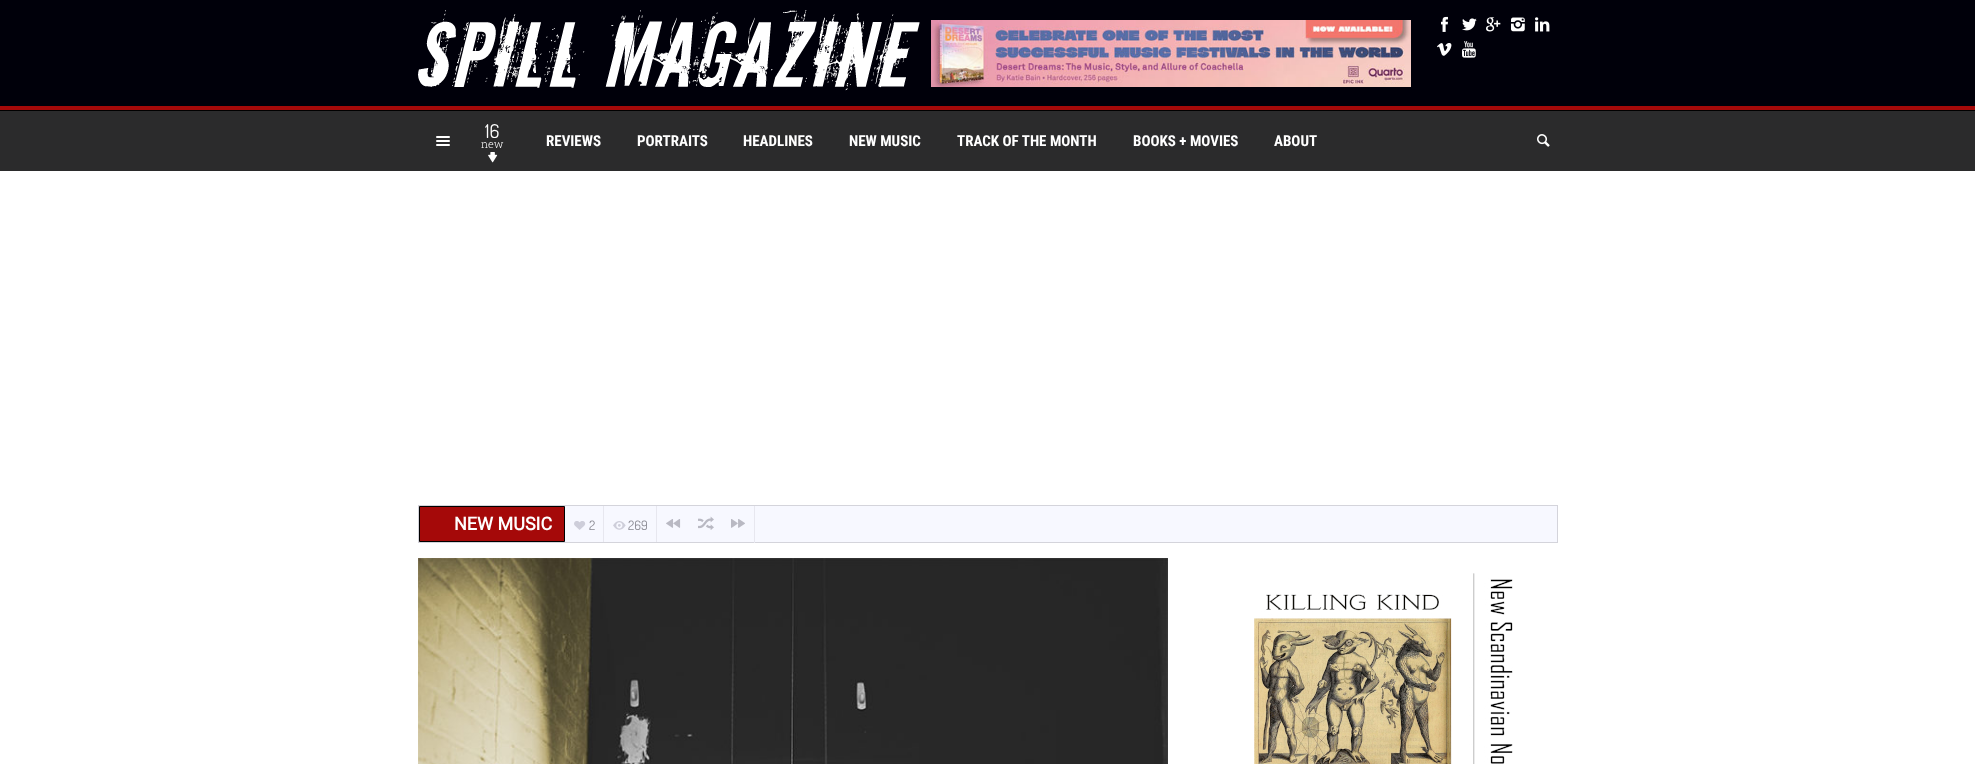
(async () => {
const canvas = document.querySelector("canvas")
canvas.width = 1975
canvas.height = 764
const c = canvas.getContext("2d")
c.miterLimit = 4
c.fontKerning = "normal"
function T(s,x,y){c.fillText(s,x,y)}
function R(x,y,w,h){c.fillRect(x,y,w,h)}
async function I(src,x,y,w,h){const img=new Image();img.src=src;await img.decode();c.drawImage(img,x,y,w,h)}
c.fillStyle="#fff"
R(0,0,1975,764)
c.fillStyle="#00000a"
R(0,0,1975,106)
c.fillStyle="#a50909"
R(0,106,1975,4)
await I("1.png",418,10,502,81)
await I("2.png",931,20,480,67)
await I("3.png",1441,16,7,16)
await I("4.png",1462,18,15,13)
await I("5.png",1486,17,15,15)
await I("6.png",1511,17,14,15)
await I("7.png",1535,17,15,15)
await I("8.png",1437,43,15,13)
await I("9.png",1462,41,14,17)
c.fillStyle="#2b2b2c"
R(0,111,1975,60)
c.fillStyle="#000"
R(0,110,1975,1)
await I("10.png",436,136,14,10)
c.font="19px Dosis"
c.fillStyle="#fff"
T("16",485,138)
c.font="300 11px Roboto Slab"
T("new",481,148)
await I("11.png",488,152,10,11)
c.font="bold 15px Roboto Condensed"
T("REVIEWS",546,146)
T("PORTRAITS",637,146)
T("HEADLINES",743,146)
T("NEW MUSIC",849,146)
T("TRACK OF THE MONTH",957,146)
T("BOOKS + MOVIES",1133,146)
T("ABOUT",1274,146)
await I("12.png",1537,134,13,13)
c.fillStyle="#f7f8ff"
R(565,506,992,36)
c.strokeStyle="#d4d4db"
c.strokeRect(418.5,505.5,1139,37)
c.fillStyle="#a50909"
c.beginPath()
c.rect(419.5,506.5,145,35)
c.fill()
c.strokeStyle="#000"
c.stroke()
c.font="bold 18px Roboto"
c.fillStyle="#fff"
T("NEW MUSIC",454,530)
c.fillStyle="#e7e7ef"
R(603,506,1,36)
await I("13.png",574,521,12,9)
c.font="13px Dosis"
c.fillStyle="#8a8a93"
T("2",589,530)
c.fillStyle="#e7e7ef"
R(656,506,1,36)
await I("14.png",613,521,13,9)
c.fillStyle="#8a8a93"
T("269",628,530)
c.fillStyle="#e7e7ef"
R(754,506,1,37)
await I("15.png",666,519,15,9)
await I("16.png",698,516,16,14)
await I("17.png",731,519,14,9)
await I("18.png",418,558,750,206)
await I("19.png",1254,573,259,191)
})()
